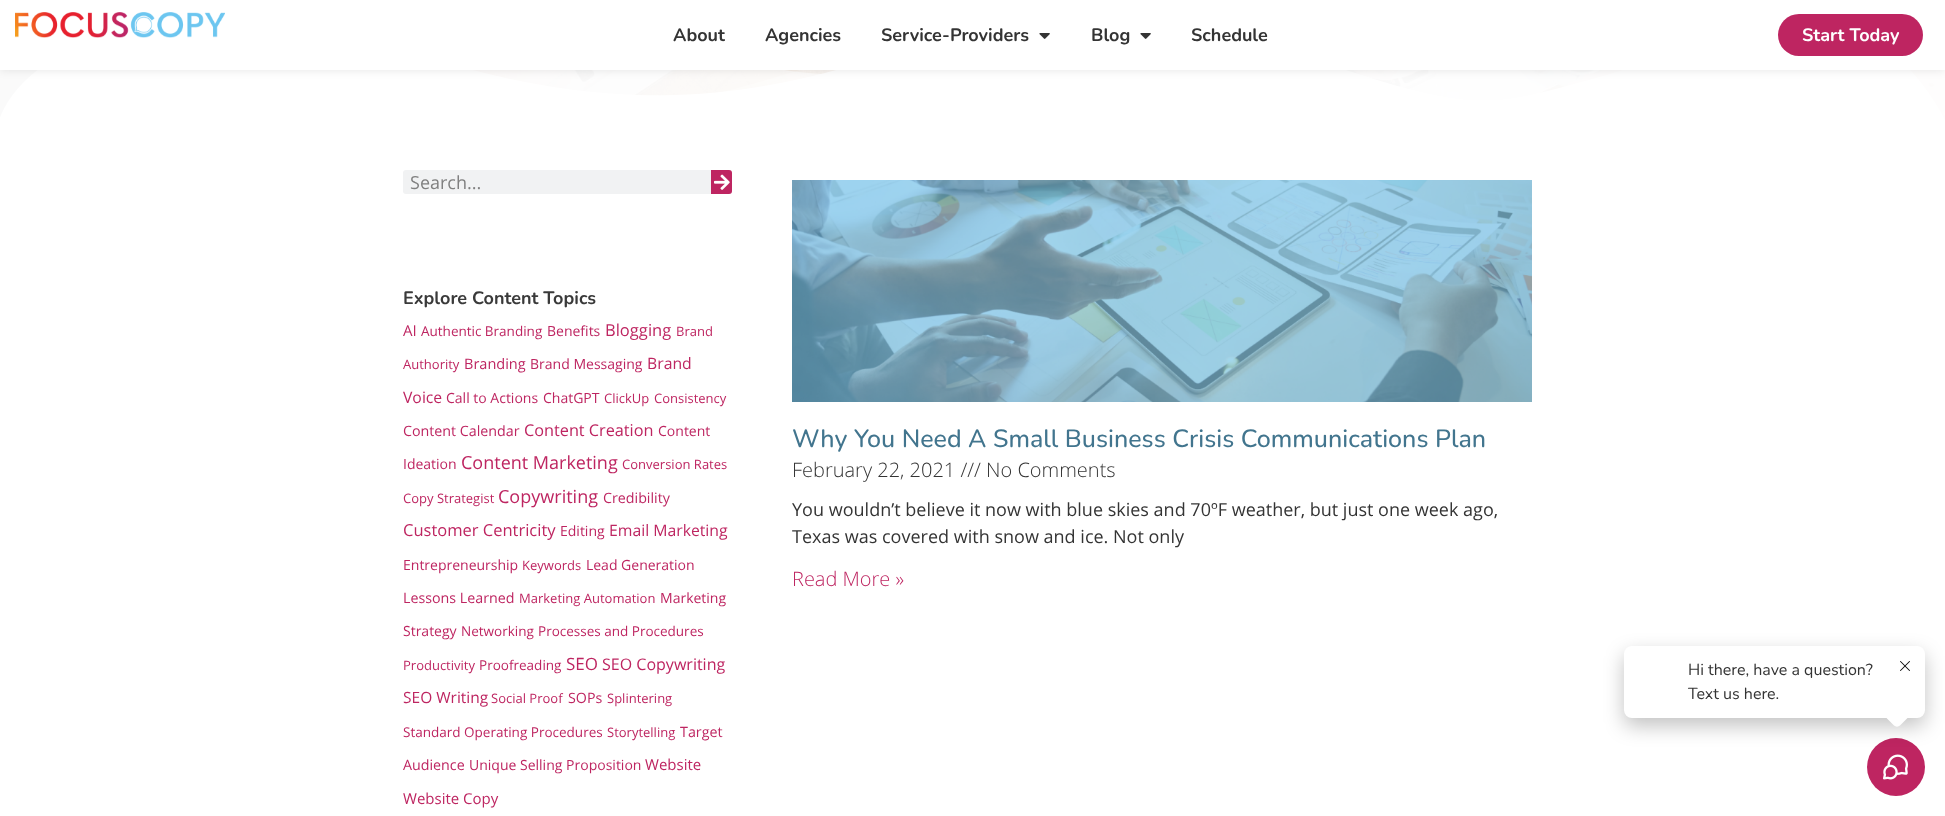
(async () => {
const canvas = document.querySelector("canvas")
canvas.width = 1945
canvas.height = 816
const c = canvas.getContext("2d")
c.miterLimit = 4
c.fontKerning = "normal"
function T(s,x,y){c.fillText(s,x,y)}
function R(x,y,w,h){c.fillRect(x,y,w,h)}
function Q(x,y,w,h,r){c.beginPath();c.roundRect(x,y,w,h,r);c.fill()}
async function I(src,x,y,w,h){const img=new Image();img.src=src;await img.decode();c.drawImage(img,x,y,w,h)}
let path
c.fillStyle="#fff"
R(0,0,1945,816)
await I("3.png",0,70,1945,50)
await I("4.png",0,70,1945,50)
c.fillStyle="#0000001a"
c.filter="blur(5px)"
c.beginPath()
c.rect(0,0,1945,70)
c.fill()
c.filter="none"
c.fillStyle="#fff"
R(0,0,1945,70)
await I("1.png",15,12,210,26)
c.font="bold 18px Nunito"
c.fillStyle="#343434"
T("About",673,41)
T("Agencies",765,41)
T("Service-Providers",881,41)
await I("2.png",1039,33,11,6)
T("Blog",1091,41)
await I("2.png",1140,33,11,6)
T("Schedule",1191,41)
c.fillStyle="#be2561"
Q(1778,14,145,42,21)
c.fillStyle="#fff"
T("Start Today",1802,41)
c.fillStyle="#f1f2f3"
Q(403,170,329,24,3)
c.font="18px Open Sans"
c.fillStyle="#808080"
T("Search...",410,189)
c.fillStyle="#be2561"
c.beginPath()
c.roundRect(711,170,21,24,[0,3,3,0])
c.fill()
await I("5.png",714,174,16,16)
c.font="bold 18px Nunito"
c.fillStyle="#3a3a3a"
T("Explore Content Topics",403,304)
c.font="15px Open Sans"
c.fillStyle="#be2561"
T("AI",403,336)
c.font="13.5px Open Sans"
T("Authentic Branding",421,336)
c.font="14px Open Sans"
T("Benefits",547,336)
c.font="16.5px Open Sans"
T("Blogging",605,336)
c.font="13px Open Sans"
T("Brand",676,336)
T("Authority",403,369)
c.font="14.5px Open Sans"
T("Branding",464,369)
c.font="14px Open Sans"
T("Brand Messaging",530,369)
c.font="15.75px Open Sans"
T("Brand",647,369)
T("Voice",403,403)
c.font="14px Open Sans"
T("Call to Actions",446,403)
T("ChatGPT",543,403)
c.font="13px Open Sans"
T("ClickUp",604,403)
T("Consistency",654,403)
c.font="14.25px Open Sans"
T("Content Calendar",403,436)
c.font="16.25px Open Sans"
T("Content Creation",524,436)
c.font="14px Open Sans"
T("Content",658,436)
T("Ideation",403,469)
c.font="18px Open Sans"
T("Content Marketing",461,469)
c.font="13px Open Sans"
T("Conversion Rates",622,469)
T("Copy Strategist",403,503)
c.font="18px Open Sans"
T("Copywriting",498,503)
c.font="14.25px Open Sans"
T("Credibility",603,503)
c.font="16.5px Open Sans"
T("Customer Centricity",403,536)
c.font="14px Open Sans"
T("Editing",560,536)
c.font="15.75px Open Sans"
T("Email Marketing",609,536)
c.font="14px Open Sans"
T("Entrepreneurship",403,570)
c.font="13px Open Sans"
T("Keywords",522,570)
c.font="14px Open Sans"
T("Lead Generation",586,570)
c.font="14.25px Open Sans"
T("Lessons Learned",403,603)
c.font="13px Open Sans"
T("Marketing Automation",519,603)
c.font="14px Open Sans"
T("Marketing",660,603)
T("Strategy",403,636)
c.font="13.5px Open Sans"
T("Networking",461,636)
T("Processes and Procedures",538,636)
c.font="13px Open Sans"
T("Productivity",403,670)
c.font="13.5px Open Sans"
T("Proofreading",479,670)
c.font="17px Open Sans"
T("SEO",566,670)
c.font="16px Open Sans"
T("SEO Copywriting",602,670)
c.font="15.5px Open Sans"
T("SEO Writing",403,703)
c.font="13px Open Sans"
T("Social Proof",491,703)
c.font="14.25px Open Sans"
T("SOPs",568,703)
c.font="13px Open Sans"
T("Splintering",607,703)
c.font="13.5px Open Sans"
T("Standard Operating Procedures",403,737)
c.font="13px Open Sans"
T("Storytelling",607,737)
c.font="14.25px Open Sans"
T("Target",680,737)
T("Audience",403,770)
c.font="14px Open Sans"
T("Unique Selling Proposition",469,770)
c.font="15px Open Sans"
T("Website",645,770)
T("Website Copy",403,804)
await I("6.png",792,180,740,222)
c.font="500 25px Nunito"
c.fillStyle="#42758e"
T("Why You Need A Small Business Crisis Communications Plan",792,447)
c.font="300 20px Open Sans"
c.fillStyle="#343434"
T("February 22, 2021 /// No Comments",792,477)
c.font="18px Open Sans"
T("You wouldn’t believe it now with blue skies and 70ºF weather, but just one week ago,",792,516)
T("Texas was covered with snow and ice. Not only",792,543)
c.font="300 20px Open Sans"
c.fillStyle="#be2561"
T("Read More »",792,586)
c.beginPath()
c.arc(1896,767,29,0,7)
c.fill()
await I("8.png",1883,754,25,26)
c.fillStyle="#0000003d"
c.filter="blur(10px)"
c.beginPath()
c.roundRect(1624,654,301,72,8)
c.fill()
c.filter="none"
c.fillStyle="#fff"
Q(1624,646,301,72,8)
c.font="16px Nunito"
c.fillStyle="#343434"
T("Hi there, have a question?",1688,675)
T("Text us here.",1688,699)
c.fillStyle="#fff"
path = new Path2D("M1900 702.5l8.5 8.5c1.5 1.5 1.5 4.5 0 6l-8.5 8.5c-1.5 1.5-4.5 1.5-6 0l-8.5-8.5c-1.5-1.5-1.5-4.5 0-6l8.5-8.5c1.5-1.5 4.5-1.5 6 0z")
c.fill(path)
await I("7.png",1900,661,10,10)
})()
